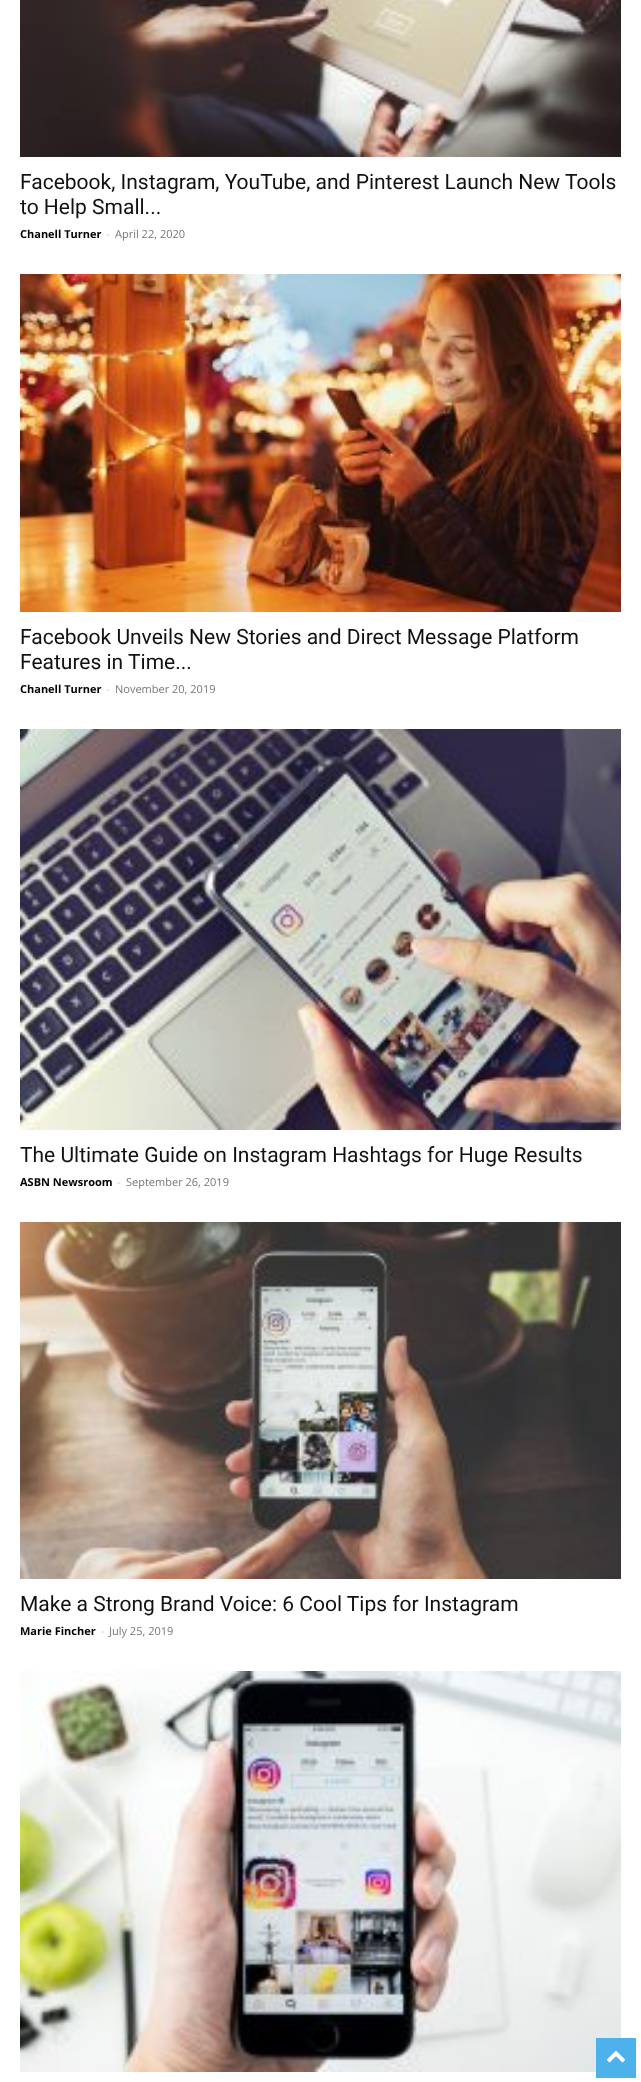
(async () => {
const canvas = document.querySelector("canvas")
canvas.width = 641
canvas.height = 2082
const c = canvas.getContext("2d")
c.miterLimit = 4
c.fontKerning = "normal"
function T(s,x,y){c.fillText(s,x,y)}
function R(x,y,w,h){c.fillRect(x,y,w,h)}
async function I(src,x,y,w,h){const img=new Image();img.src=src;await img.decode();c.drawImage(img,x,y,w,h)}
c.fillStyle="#fff"
R(0,0,641,2082)
await I("1.png",20,0,601,157)
c.font="21px Roboto"
c.fillStyle="#111"
T("Facebook, Instagram, YouTube, and Pinterest Launch New Tools",20,189)
T("to Help Small...",20,214)
c.font="bold 11px Open Sans"
c.fillStyle="#000"
T("Chanell Turner",20,238)
c.font="11px Open Sans"
c.fillStyle="#ccc"
T("-",106,238)
c.fillStyle="#767676"
T("April 22, 2020",115,238)
await I("2.png",20,274,601,338)
c.font="21px Roboto"
c.fillStyle="#111"
T("Facebook Unveils New Stories and Direct Message Platform",20,644)
T("Features in Time...",20,669)
c.font="bold 11px Open Sans"
c.fillStyle="#000"
T("Chanell Turner",20,693)
c.font="11px Open Sans"
c.fillStyle="#ccc"
T("-",106,693)
c.fillStyle="#767676"
T("November 20, 2019",115,693)
await I("3.png",20,729,601,401)
c.font="21px Roboto"
c.fillStyle="#111"
T("The Ultimate Guide on Instagram Hashtags for Huge Results",20,1162)
c.font="bold 11px Open Sans"
c.fillStyle="#000"
T("ASBN Newsroom",20,1186)
c.font="11px Open Sans"
c.fillStyle="#ccc"
T("-",117,1186)
c.fillStyle="#767676"
T("September 26, 2019",126,1186)
await I("4.png",20,1222,601,357)
c.font="21px Roboto"
c.fillStyle="#111"
T("Make a Strong Brand Voice: 6 Cool Tips for Instagram",20,1611)
c.font="bold 11px Open Sans"
c.fillStyle="#000"
T("Marie Fincher",20,1635)
c.font="11px Open Sans"
c.fillStyle="#ccc"
T("-",101,1635)
c.fillStyle="#767676"
T("July 25, 2019",109,1635)
await I("5.png",20,1671,601,401)
c.fillStyle="#4db2ec"
R(596,2038,40,40)
await I("6.png",607,2050,18,13)
})()
